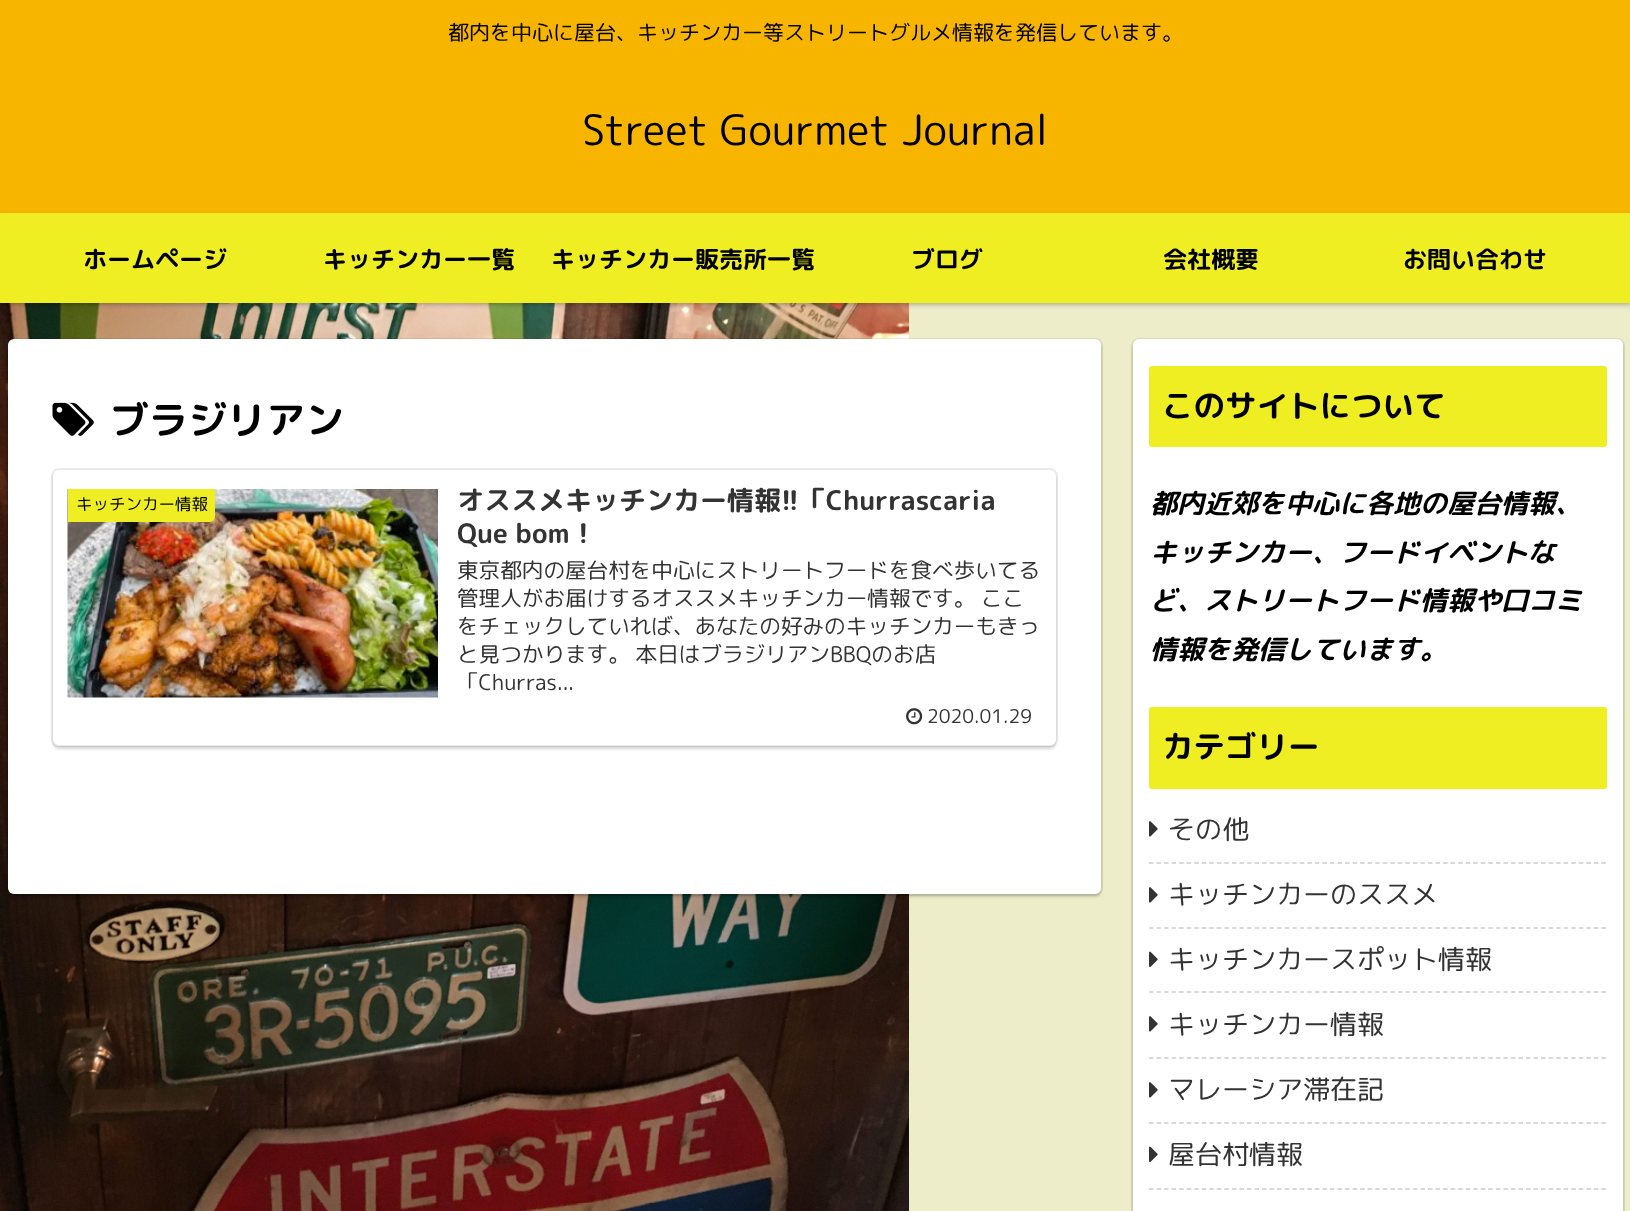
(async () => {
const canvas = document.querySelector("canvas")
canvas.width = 1630
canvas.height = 1211
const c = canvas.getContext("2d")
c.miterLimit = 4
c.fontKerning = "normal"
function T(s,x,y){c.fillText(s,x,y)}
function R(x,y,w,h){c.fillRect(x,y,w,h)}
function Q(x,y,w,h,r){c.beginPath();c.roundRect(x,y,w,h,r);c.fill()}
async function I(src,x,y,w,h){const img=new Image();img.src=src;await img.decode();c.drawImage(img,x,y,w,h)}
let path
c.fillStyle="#ededc9"
R(0,0,1630,1211)
await I("1.png",0,303,909,908)
c.fillStyle="#ee2"
R(0,213,1630,90)
c.fillStyle="#f8b500"
R(0,0,1630,213)
c.font="21px 'Rounded Mplus 1c'"
c.fillStyle="#000"
T("都内を中心に屋台、キッチンカー等ストリートグルメ情報を発信しています。",448,40)
c.font="42px 'Rounded Mplus 1c'"
T("Street Gourmet Journal",582,145)
c.save()
path = new Path2D("M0 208h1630v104h-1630zm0 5h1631v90h-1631z")
c.clip(path,"evenodd")
c.fillStyle="#00000040"
c.filter="blur(2px)"
c.beginPath()
c.rect(0,215,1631,90)
c.fill()
c.filter="none"
c.restore()
c.font="bold 24px 'Rounded Mplus 1c Bold'"
T("ホームページ",83,268)
T("キッチンカー一覧",323,268)
T("キッチンカー販売所一覧",551,268)
T("ブログ",911,268)
T("会社概要",1163,268)
T("お問い合わせ",1403,268)
c.beginPath()
c.roundRect(7,339,1095,556,7)
c.strokeStyle="#00000014"
c.lineWidth=2
c.stroke()
c.fillStyle="#00000029"
c.filter="blur(1.5px)"
c.beginPath()
c.roundRect(8,342,1093,555,6)
c.fill()
c.filter="none"
c.fillStyle="#fff"
Q(8,339,1093,555,6)
await I("2.png",52,402,42,34)
c.font="bold 39px 'Rounded Mplus 1c Bold'"
c.fillStyle="#000"
T("ブラジリアン",110,434)
c.beginPath()
c.roundRect(52,469,1005,277,7)
c.strokeStyle="#ebebeb"
c.stroke()
c.save()
path = new Path2D("M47 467h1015v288h-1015zm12 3h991c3.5 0 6 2.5 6 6v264c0 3.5-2.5 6-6 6h-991c-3.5 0-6-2.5-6-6v-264c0-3.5 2.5-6 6-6z")
c.clip(path,"evenodd")
c.fillStyle="#00000029"
c.filter="blur(1.5px)"
c.beginPath()
c.roundRect(53,473,1003,276,6)
c.fill()
c.filter="none"
c.restore()
await I("3.png",67,489,371,209)
c.fillStyle="#ee2"
c.beginPath()
c.roundRect(68,489,147,33,[0,0,5,0])
c.fill()
c.font="16.5px 'Rounded Mplus 1c'"
c.fillStyle="#000"
T("キッチンカー情報",76,510)
c.font="bold 27px 'Rounded Mplus 1c Bold'"
c.fillStyle="#333"
T("オススメキッチンカー情報!!「Churrascaria",457,510)
T("Que bom！",457,543)
c.font="21.6px 'Rounded Mplus 1c'"
T("東京都内の屋台村を中心にストリートフードを食べ歩いてる",457,578)
T("管理人がお届けするオススメキッチンカー情報です。",457,606)
T("ここ",981,606)
T("をチェックしていれば、あなたの好みのキッチンカーもきっ",457,634)
T("と見つかります。 本日はブラジリアンBBQのお店",457,662)
T("「Churras...",457,690)
await I("4.png",906,708,17,17)
c.font="19px 'Rounded Mplus 1c'"
T("2020.01.29",927,723)
c.beginPath()
c.roundRect(1132,339,492,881,7)
c.strokeStyle="#dadab9"
c.stroke()
c.fillStyle="#00000029"
c.filter="blur(1.5px)"
c.beginPath()
c.roundRect(1133,342,490,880,6)
c.fill()
c.filter="none"
c.fillStyle="#fff"
Q(1133,339,490,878,6)
c.fillStyle="#ee2"
Q(1149,366,458,81,3)
c.font="bold 31.5px 'Rounded Mplus 1c Bold'"
c.fillStyle="#000"
T("このサイトについて",1162,417)
c.font="italic bold 27px 'Rounded Mplus 1c Bold'"
T("都内近郊を中心に各地の屋台情報、",1150,513)
T("キッチンカー、フードイベントな",1150,562)
T("ど、ストリートフード情報や口コミ",1150,610)
T("情報を発信しています。",1150,659)
c.fillStyle="#ee2"
Q(1149,707,458,82,3)
c.font="bold 31.5px 'Rounded Mplus 1c Bold'"
c.fillStyle="#000"
T("カテゴリー",1162,758)
path = new Path2D("M1149 863h457.5")
c.strokeStyle="#ccc"
c.lineWidth=1.5
c.setLineDash([4.5,3.04])
c.stroke(path)
await I("5.png",1149,821,9,16)
c.font="27px 'Rounded Mplus 1c'"
c.fillStyle="#333"
T("その他",1168,839)
path = new Path2D("M1149 928h457.5")
c.stroke(path)
await I("5.png",1149,887,9,16)
T("キッチンカーのススメ",1168,904)
path = new Path2D("M1149 992h457.5")
c.stroke(path)
await I("6.png",1149,951,9,16)
T("キッチンカースポット情報",1168,969)
path = new Path2D("M1149 1058h457.5")
c.stroke(path)
await I("5.png",1149,1016,9,16)
T("キッチンカー情報",1168,1034)
path = new Path2D("M1149 1123h457.5")
c.stroke(path)
await I("5.png",1149,1082,9,16)
T("マレーシア滞在記",1168,1099)
path = new Path2D("M1149 1189h457.5")
c.stroke(path)
await I("6.png",1149,1146,9,16)
T("屋台村情報",1168,1164)
})()
